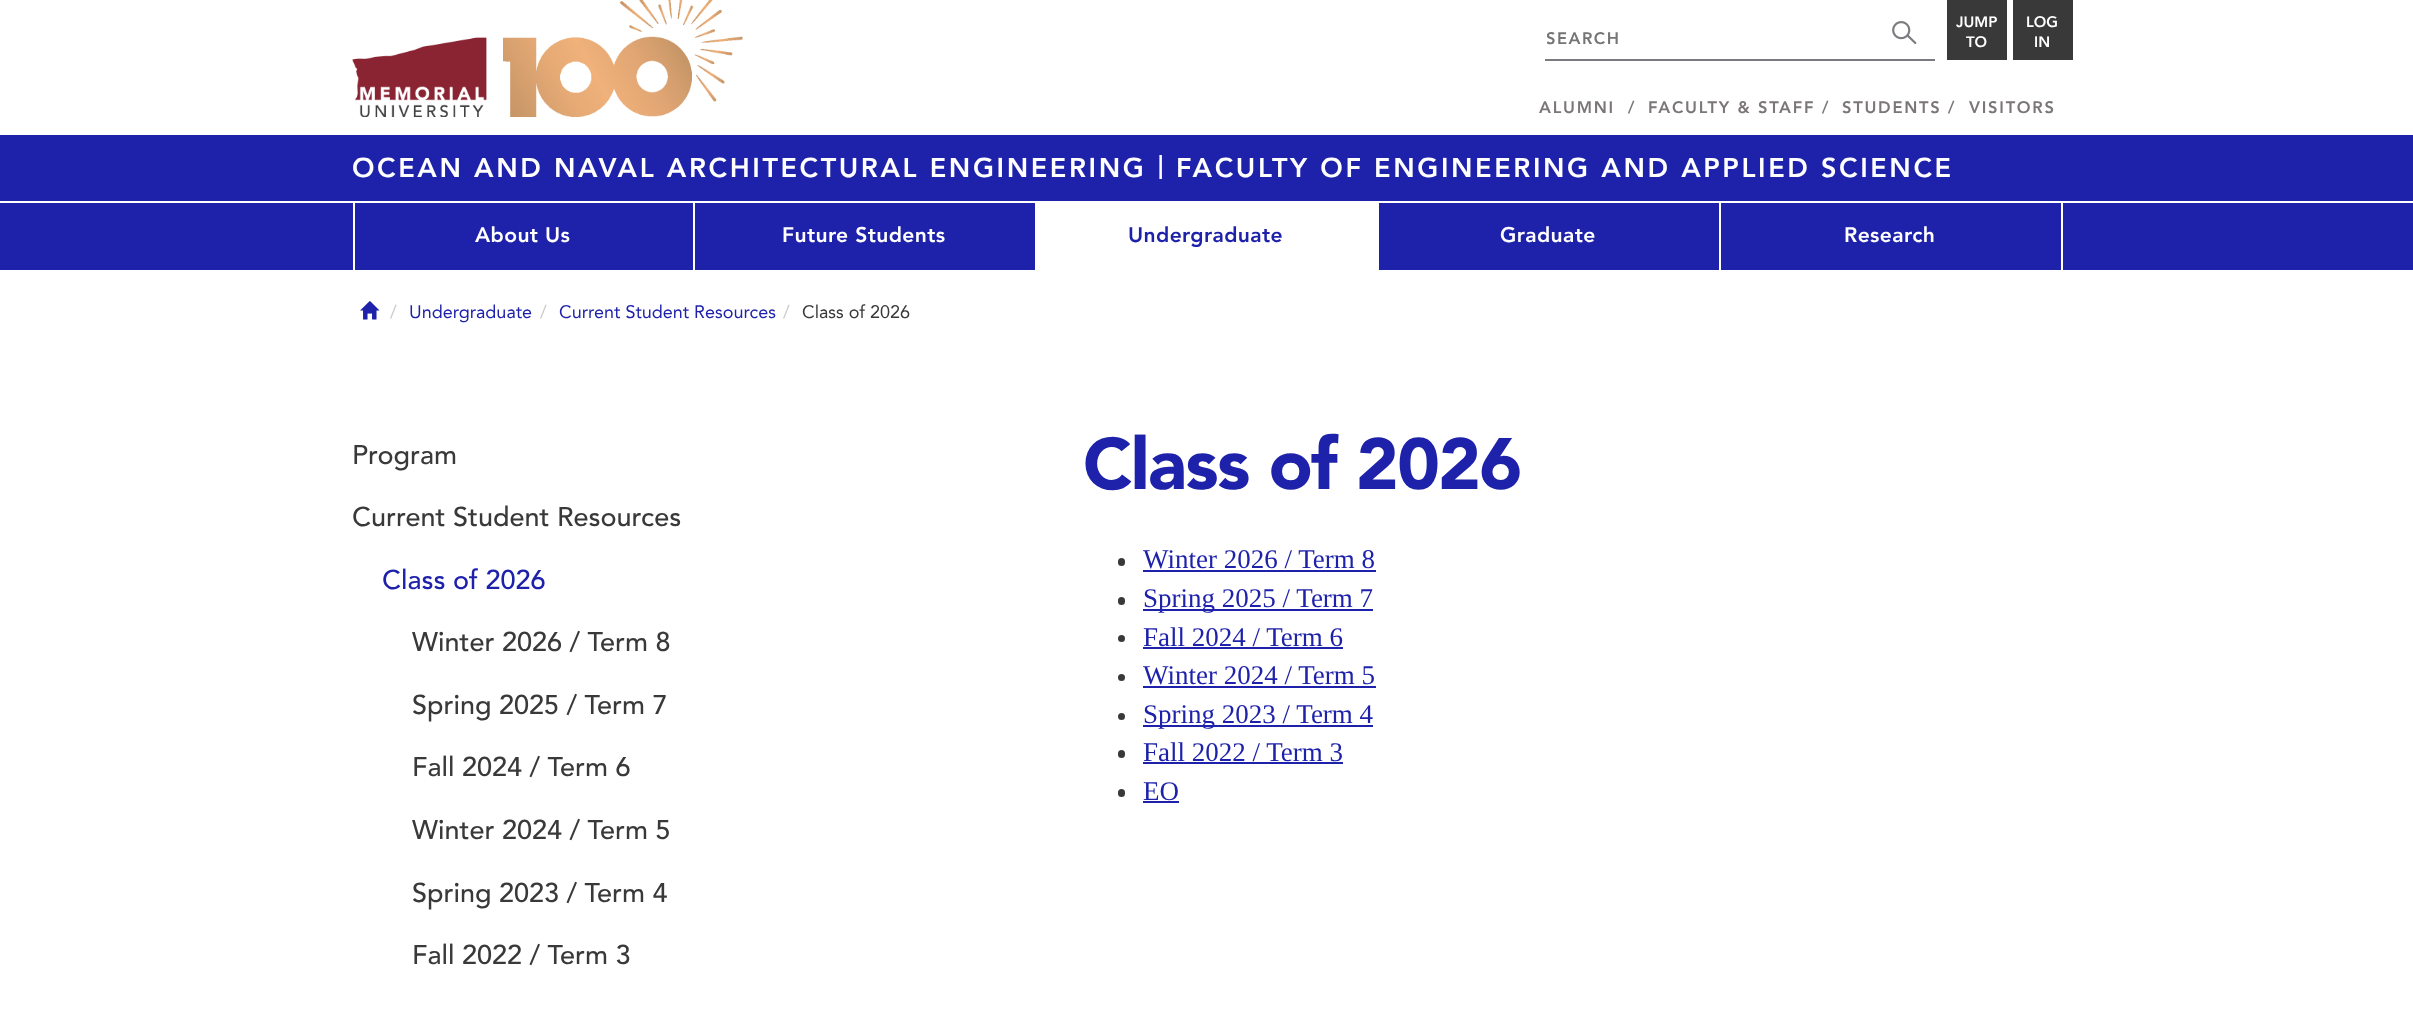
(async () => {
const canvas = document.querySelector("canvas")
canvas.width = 2413
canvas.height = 1015
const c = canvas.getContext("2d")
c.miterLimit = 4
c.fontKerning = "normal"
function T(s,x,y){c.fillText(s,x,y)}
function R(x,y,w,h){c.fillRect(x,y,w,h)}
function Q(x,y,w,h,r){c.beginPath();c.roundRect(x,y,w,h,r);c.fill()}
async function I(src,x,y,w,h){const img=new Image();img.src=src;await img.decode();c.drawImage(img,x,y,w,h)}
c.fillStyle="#fff"
R(0,0,2413,1015)
await I("1.png",352,0,391,117)
c.fillStyle="#797b7e"
R(1545,59,390,2)
c.save()
c.beginPath()
c.rect(1547,30,325,20)
c.clip()
c.letterSpacing="1.5px"
c.font="900 16.5px 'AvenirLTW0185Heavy'"
c.fillStyle="#757575"
T("SEARCH",1546,44)
c.restore()
await I("2.png",1892,21,25,24)
c.fillStyle="#393939"
R(1947,0,60,60)
c.font="900 15px 'AvenirLTW0185Heavy'"
c.fillStyle="#fff"
T("JUMP",1956,27)
T("TO",1966,47)
c.fillStyle="#393939"
R(2013,0,60,60)
c.fillStyle="#fff"
T("LOG",2026,27)
T("IN",2034,47)
c.letterSpacing="1.75px"
c.font="900 16.5px 'AvenirLTW0185Heavy'"
c.fillStyle="#7b7678"
T("ALUMNI",1539,113)
T("/",1628,113)
T("FACULTY & STAFF",1648,113)
T("/",1822,113)
T("STUDENTS",1842,113)
T("/",1948,113)
T("VISITORS",1969,113)
c.fillStyle="#1e22aa"
R(0,135,2413,66)
c.letterSpacing="2.6px"
c.font="900 27px 'AvenirLTW0185Heavy'"
c.fillStyle="#fff"
T("OCEAN AND NAVAL ARCHITECTURAL ENGINEERING",352,177)
c.font="900 24px 'AvenirLTW0185Heavy'"
T("|",1158,173)
c.font="900 27px 'AvenirLTW0185Heavy'"
T("FACULTY OF ENGINEERING AND APPLIED SCIENCE",1176,177)
c.fillStyle="#1e22aa"
R(0,203,2413,67)
c.fillStyle="#fff"
R(693,203,2,67)
R(353,203,2,67)
c.letterSpacing="0.4px"
c.font="900 21px 'AvenirLTW0185Heavy'"
T("About Us",475,242)
R(1035,203,344,67)
T("Future Students",782,242)
c.fillStyle="#1e22aa"
T("Undergraduate",1128,242)
c.fillStyle="#fff"
R(1719,203,2,67)
T("Graduate",1500,242)
R(2061,203,2,67)
T("Research",1844,242)
await I("3.png",360,301,20,19)
c.letterSpacing="0px"
c.font="18px 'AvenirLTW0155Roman'"
c.fillStyle="#ccc"
T("/",390,318)
c.fillStyle="#1e22aa"
T("Undergraduate",409,318)
c.fillStyle="#ccc"
T("/",540,318)
c.fillStyle="#1e22aa"
T("Current Student Resources",559,318)
c.fillStyle="#ccc"
T("/",783,318)
c.fillStyle="#393939"
T("Class of 2026",802,318)
c.font="500 27px 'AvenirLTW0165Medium'"
T("Program",352,464)
T("Current Student Resources",352,526)
c.fillStyle="#1e22aa"
T("Class of 2026",382,589)
c.fillStyle="#393939"
T("Winter 2026 / Term 8",412,651)
T("Spring 2025 / Term 7",412,714)
T("Fall 2024 / Term 6",412,776)
T("Winter 2024 / Term 5",412,839)
T("Spring 2023 / Term 4",412,902)
T("Fall 2022 / Term 3",412,964)
c.letterSpacing="-1.5px"
c.font="900 72px 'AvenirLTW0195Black'"
c.fillStyle="#1e22aa"
T("Class of 2026",1083,489)
c.fillStyle="#393939"
Q(1118,558,7,8,3.5)
c.letterSpacing="0px"
c.font="27px Liberation Serif"
c.fillStyle="#1e22aa"
T("Winter 2026 / Term 8",1143,568)
R(1143,570,233,2)
c.fillStyle="#393939"
Q(1118,597,7,8,3.5)
c.fillStyle="#1e22aa"
R(1143,609,230,2)
T("Spring 2025 / Term 7",1143,607)
c.fillStyle="#393939"
c.beginPath()
c.arc(1121.5,638.5,3.5,0,7)
c.fill()
c.fillStyle="#1e22aa"
T("Fall 2024 / Term 6",1143,646)
R(1143,647,200,2)
c.fillStyle="#393939"
c.beginPath()
c.arc(1121.5,677.5,3.5,0,7)
c.fill()
c.fillStyle="#1e22aa"
T("Winter 2024 / Term 5",1143,684)
R(1143,686,233,2)
c.fillStyle="#393939"
c.beginPath()
c.arc(1121.5,716.5,3.5,0,7)
c.fill()
c.fillStyle="#1e22aa"
R(1143,725,230,2)
T("Spring 2023 / Term 4",1143,723)
c.fillStyle="#393939"
Q(1118,750,7,8,3.5)
c.fillStyle="#1e22aa"
T("Fall 2022 / Term 3",1143,761)
R(1143,762,200,2)
c.fillStyle="#393939"
Q(1118,789,7,8,3.5)
c.fillStyle="#1e22aa"
T("EO",1143,800)
R(1143,801,36,2)
})()
